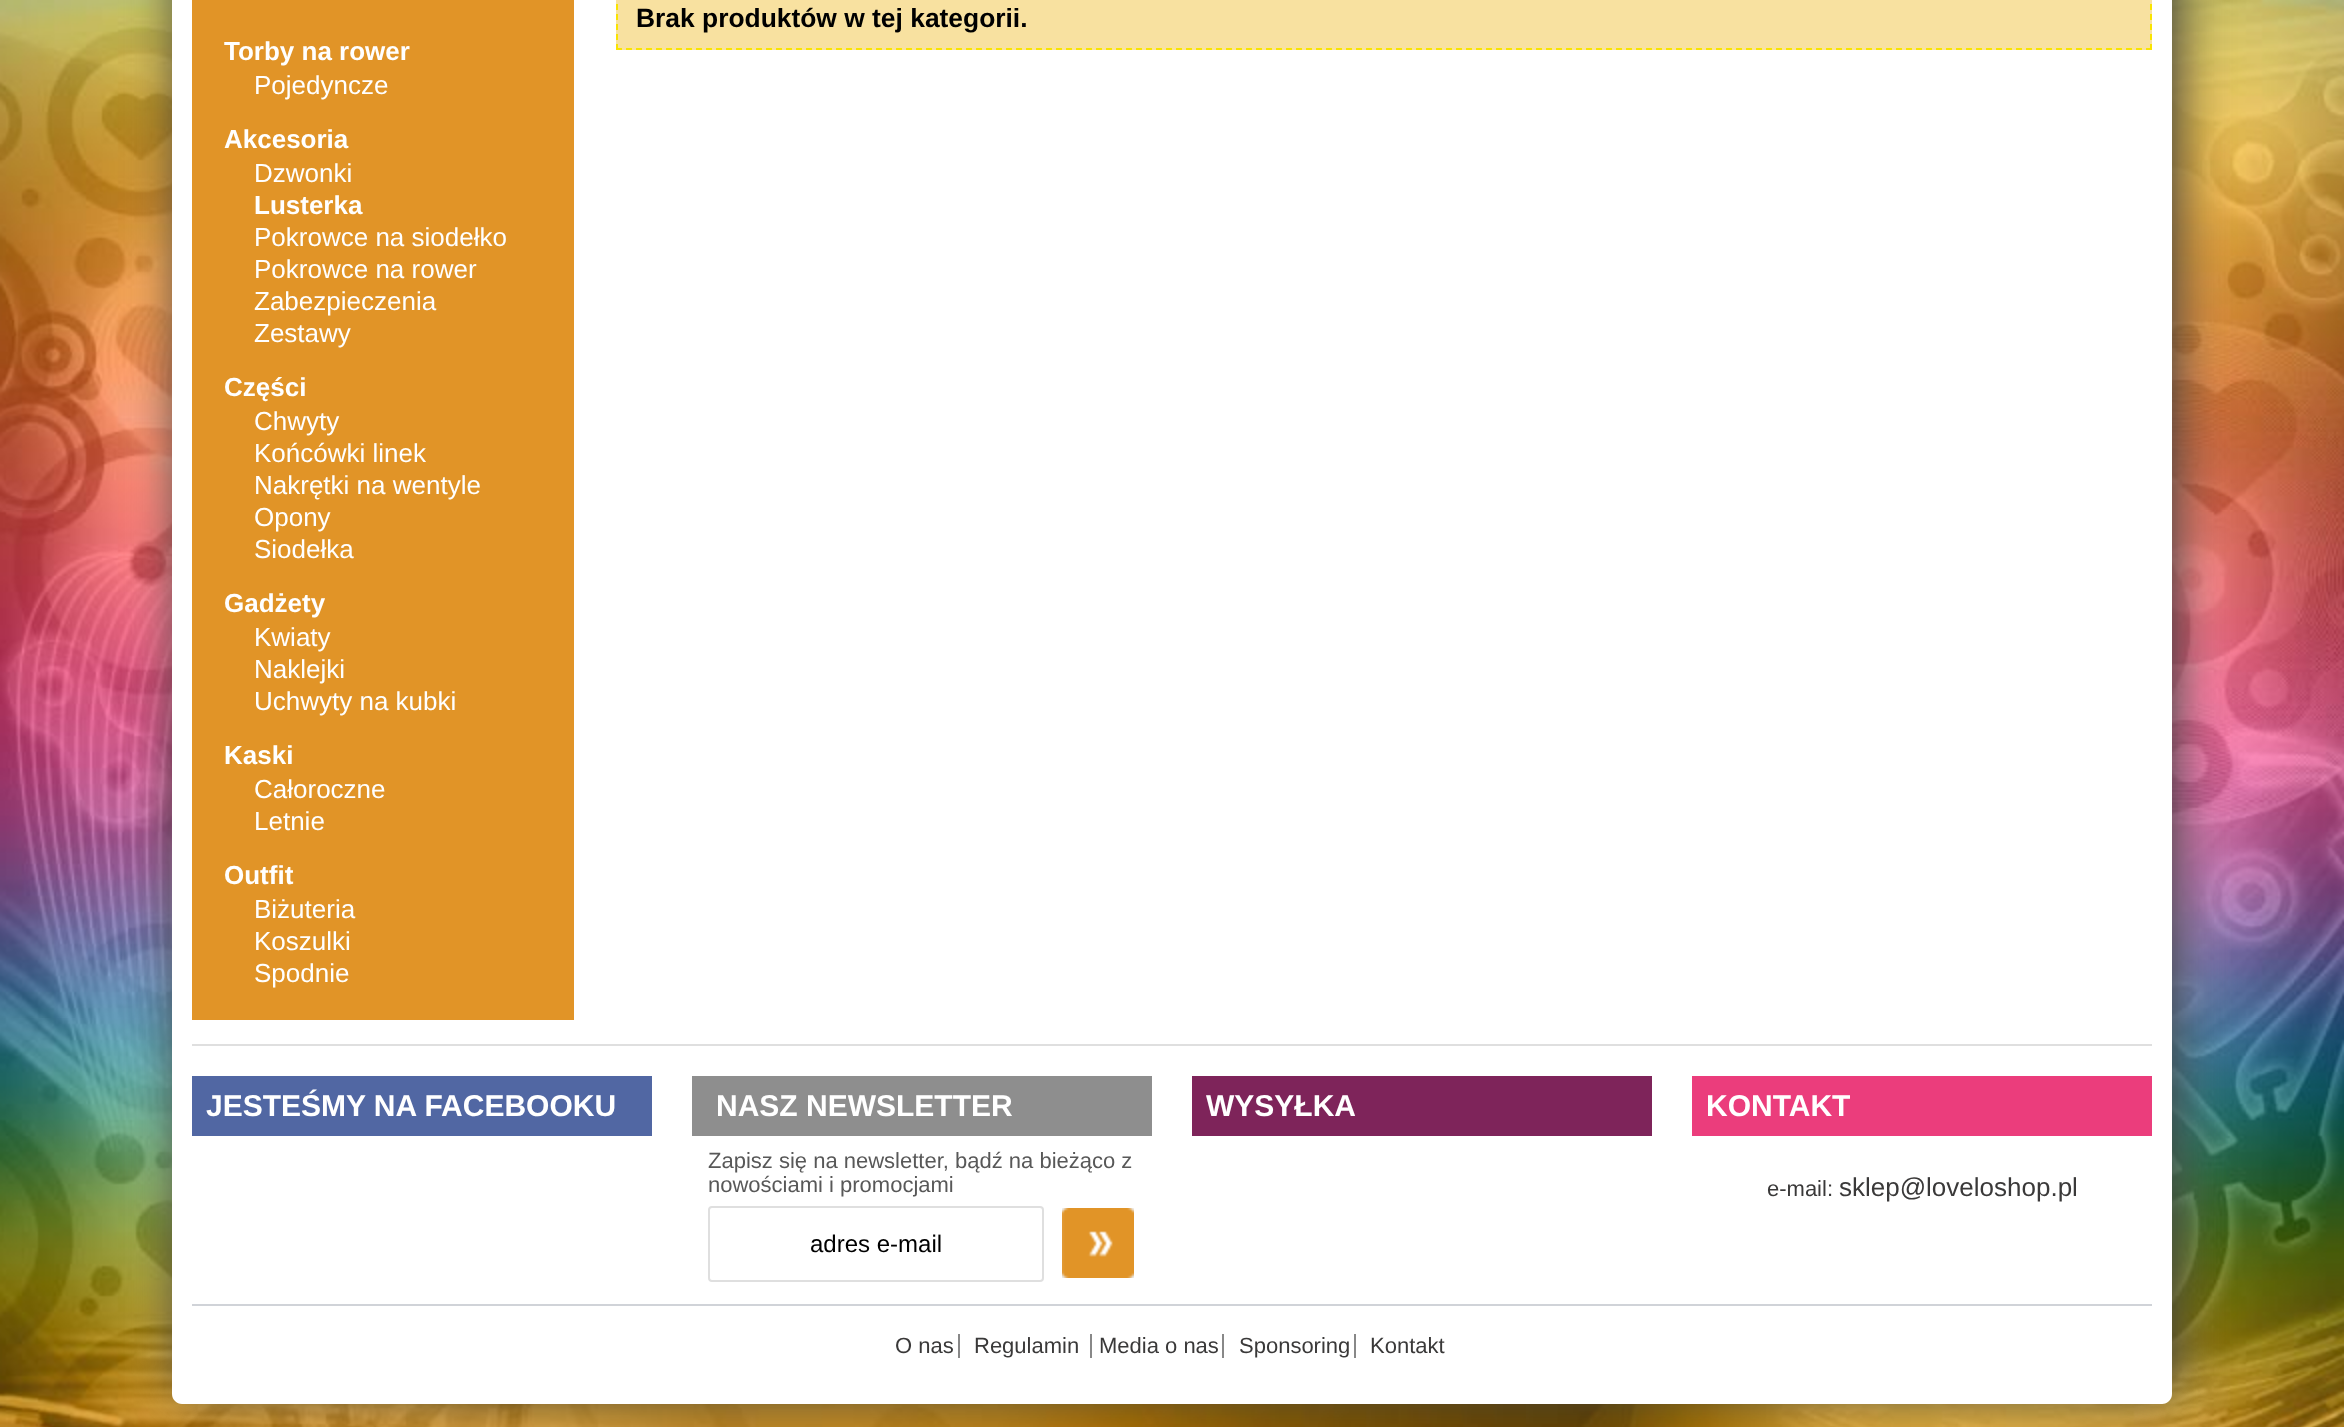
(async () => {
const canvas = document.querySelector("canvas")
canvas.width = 2344
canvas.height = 1427
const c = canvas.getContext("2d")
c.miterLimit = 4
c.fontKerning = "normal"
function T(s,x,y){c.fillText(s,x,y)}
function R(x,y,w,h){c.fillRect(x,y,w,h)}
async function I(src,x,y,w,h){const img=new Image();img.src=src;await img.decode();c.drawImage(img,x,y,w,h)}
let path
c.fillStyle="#fff"
R(0,0,2344,1427)
await I("1.png",0,0,2344,1427)
c.fillStyle="#3e3e3e"
c.filter="blur(25px)"
c.beginPath()
c.roundRect(178,-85,2000,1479,10)
c.fill()
c.filter="none"
c.fillStyle="#fff"
path = new Path2D("M172-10h2000v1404c0 5.5-4.5 10-10 10h-1980c-5.5 0-10-4.5-10-10z")
c.fill(path)
c.fillStyle="#f8e1a0"
R(616,0,1536,50)
path = new Path2D("M2151-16v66")
c.strokeStyle="#f9e400"
c.lineWidth=2
c.setLineDash([6,4])
c.stroke(path)
path = new Path2D("M616 49h1536")
c.stroke(path)
path = new Path2D("M617-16v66")
c.stroke(path)
c.font="bold 26.4px Liberation Sans"
c.fillStyle="#000"
T("Brak produktów w tej kategorii.",636,27)
c.fillStyle="#e19427"
R(192,0,382,1020)
c.font="bold 26px Liberation Sans"
c.fillStyle="#fff"
T("Torby na rower",224,60)
c.font="26px Liberation Sans"
T("Pojedyncze",254,94)
c.font="bold 26px Liberation Sans"
T("Akcesoria",224,148)
c.font="26px Liberation Sans"
T("Dzwonki",254,182)
c.font="bold 26px Liberation Sans"
T("Lusterka",254,214)
c.font="26px Liberation Sans"
T("Pokrowce na siodełko",254,246)
T("Pokrowce na rower",254,278)
T("Zabezpieczenia",254,310)
T("Zestawy",254,342)
c.font="bold 26px Liberation Sans"
T("Części",224,396)
c.font="26px Liberation Sans"
T("Chwyty",254,430)
T("Końcówki linek",254,462)
T("Nakrętki na wentyle",254,494)
T("Opony",254,526)
T("Siodełka",254,558)
c.font="bold 26px Liberation Sans"
T("Gadżety",224,612)
c.font="26px Liberation Sans"
T("Kwiaty",254,646)
T("Naklejki",254,678)
T("Uchwyty na kubki",254,710)
c.font="bold 26px Liberation Sans"
T("Kaski",224,764)
c.font="26px Liberation Sans"
T("Całoroczne",254,798)
T("Letnie",254,830)
c.font="bold 26px Liberation Sans"
T("Outfit",224,884)
c.font="26px Liberation Sans"
T("Biżuteria",254,918)
T("Koszulki",254,950)
T("Spodnie",254,982)
c.fillStyle="#dfdfdf"
R(192,1044,1960,2)
c.fillStyle="#5167a3"
R(192,1076,460,60)
c.font="bold 30px Liberation Sans"
c.fillStyle="#fff"
T("JESTEŚMY NA FACEBOOKU",206,1116)
c.fillStyle="#8e8e8e"
R(692,1076,460,60)
c.fillStyle="#fff"
T("NASZ NEWSLETTER",716,1116)
c.font="22px Liberation Sans"
c.fillStyle="#585858"
T("Zapisz się na newsletter, bądź na bieżąco z",708,1168)
T("nowościami i promocjami",708,1192)
c.beginPath()
c.roundRect(709,1207,334,74,3)
c.strokeStyle="#dfdfdf"
c.setLineDash([])
c.stroke()
c.font="24px Liberation Sans"
c.fillStyle="#000"
T("adres e-mail",810,1252)
await I("2.png",1062,1208,72,70)
c.fillStyle="#7e245a"
R(1192,1076,460,60)
c.font="bold 30px Liberation Sans"
c.fillStyle="#fff"
T("WYSYŁKA",1206,1116)
c.fillStyle="#eb3d7c"
R(1692,1076,460,60)
c.fillStyle="#fff"
T("KONTAKT",1706,1116)
c.font="22px Liberation Sans"
c.fillStyle="#3a3939"
T("e-mail:",1767,1196)
c.font="26px Liberation Sans"
T("sklep@loveloshop.pl",1839,1196)
c.fillStyle="#d0d3d8"
R(192,1304,1960,2)
c.font="22px Liberation Sans"
c.fillStyle="#3a3939"
T("O nas",895,1353)
T("Regulamin",974,1353)
c.fillStyle="#888"
R(958,1334,2,24)
c.fillStyle="#3a3939"
T("Media o nas",1099,1353)
c.fillStyle="#888"
R(1090,1334,2,24)
c.fillStyle="#3a3939"
T("Sponsoring",1239,1353)
c.fillStyle="#888"
R(1222,1334,2,24)
c.fillStyle="#3a3939"
T("Kontakt",1370,1353)
c.fillStyle="#888"
R(1354,1334,2,24)
})()
